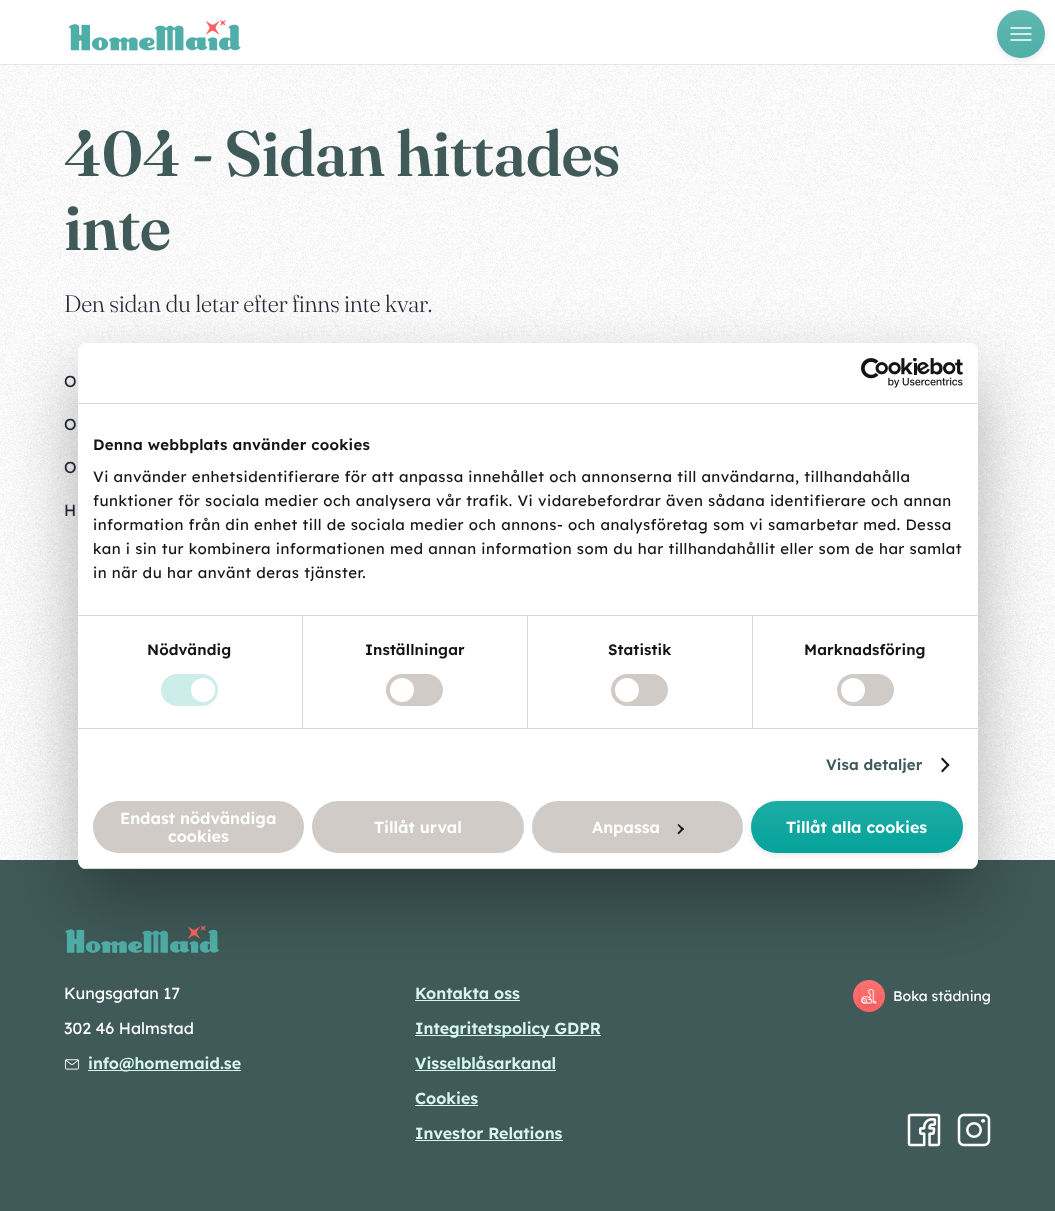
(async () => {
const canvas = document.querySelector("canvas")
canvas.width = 1055
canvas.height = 1211
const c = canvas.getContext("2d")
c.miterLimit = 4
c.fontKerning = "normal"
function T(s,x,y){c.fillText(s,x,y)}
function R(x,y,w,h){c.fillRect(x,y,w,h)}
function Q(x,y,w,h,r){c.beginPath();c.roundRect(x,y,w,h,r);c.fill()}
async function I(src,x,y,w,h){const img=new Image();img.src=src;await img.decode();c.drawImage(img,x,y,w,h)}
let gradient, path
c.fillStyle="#fff"
R(0,0,1055,1211)
await I("1.png",0,65,1055,795)
c.fillStyle="#e6e6e6"
R(0,64,1055,1)
await I("2.png",69,19,172,32)
c.fillStyle="#0000001a"
c.filter="blur(3px)"
c.beginPath()
c.roundRect(997,12,48,48,24)
c.fill()
c.filter="none"
c.fillStyle="#4fafa8"
c.beginPath()
c.arc(1021,34,24,0,7)
c.fill()
gradient = c.createLinearGradient(1021,10,1021,58)
gradient.addColorStop(0,"#ffffff1a")
gradient.addColorStop(1,"#ffffff00")
c.fillStyle = gradient
c.beginPath()
c.arc(1021,34,24,0,7)
c.fill()
path = new Path2D("M1011 40h20m-20-6h20m-20-6h20")
c.strokeStyle="#fff"
c.lineWidth=1.5
c.lineCap="round"
c.lineJoin="round"
c.stroke(path)
c.letterSpacing="-0.6px"
c.font="600 64px Fraunces"
c.fillStyle="#3f5a58"
T("404 - Sidan hittades",64,176)
T("inte",64,250)
c.letterSpacing="-0.25px"
c.font="300 24px Fraunces"
c.fillStyle="#252a36"
T("Den sidan du letar efter finns inte kvar.",64,312)
c.letterSpacing="0px"
c.font="16px Lexend"
T("O",64,387)
T("O",64,430)
T("O",64,473)
T("H",64,516)
c.fillStyle="#3f5a58"
R(0,860,1055,351)
await I("3.png",65,925,154,28)
c.fillStyle="#fff"
T("Kungsgatan 17",64,999)
T("302 46 Halmstad",64,1034)
await I("4.png",64,1059,16,11)
c.fillStyle="#d7f5f3"
R(88,1070,153,1)
c.font="600 16px Lexend"
T("info@homemaid.se",88,1069)
T("Kontakta oss",415,999)
R(415,1000,105,1)
R(415,1035,186,1)
T("Integritetspolicy GDPR",415,1034)
T("Visselblåsarkanal",415,1069)
R(415,1070,141,1)
T("Cookies",415,1104)
R(415,1105,63,1)
T("Investor Relations",415,1139)
R(415,1140,148,1)
c.fillStyle="#fd6363"
c.beginPath()
c.arc(869,996,16,0,7)
c.fill()
gradient = c.createLinearGradient(869,980,869,1012)
gradient.addColorStop(0,"#ffffff1a")
gradient.addColorStop(1,"#ffffff00")
c.fillStyle = gradient
c.beginPath()
c.arc(869,996,16,0,7)
c.fill()
c.save()
path = new Path2D("M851 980h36v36h-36zm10 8h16v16h-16z")
c.clip(path,"evenodd")
c.fillStyle="#0000001a"
c.filter="blur(3px)"
c.beginPath()
c.rect(861,990,16,16)
c.fill()
c.filter="none"
c.restore()
await I("5.png",861,989,16,15)
c.font="14px Lexend"
c.fillStyle="#fff"
T("Boka städning",893,1001)
await I("6.png",907,1113,34,34)
await I("7.png",957,1113,34,34)
c.fillStyle="#0000004d"
c.filter="blur(34px)"
c.beginPath()
c.roundRect(78,375,900,526,8)
c.fill()
c.filter="none"
c.fillStyle="#fff"
Q(78,343,900,526,8)
c.fillStyle="#d6d6d6"
R(78,403,900,1)
await I("8.png",861,358,102,30)
R(78,615,900,1)
c.letterSpacing="0.25px"
c.font="600 15px Lexend"
c.fillStyle="#141414"
T("Denna webbplats använder cookies",93,450)
c.letterSpacing="0.5px"
c.font="15px Lexend"
T("Vi använder enhetsidentifierare för att anpassa innehållet och annonserna till användarna, tillhandahålla",93,482)
T("funktioner för sociala medier och analysera vår trafik. Vi vidarebefordrar även sådana identifierare och annan",93,506)
T("information från din enhet till de sociala medier och annons- och analysföretag som vi samarbetar med. Dessa",93,530)
T("kan i sin tur kombinera informationen med annan information som du har tillhandahållit eller som de har samlat",93,554)
T("in när du har använt deras tjänster.",93,578)
c.fillStyle="#d6d6d6"
R(78,728,900,1)
R(302,616,1,112)
c.letterSpacing="0.1px"
c.font="600 15px Lexend"
c.fillStyle="#141414"
T("Nödvändig",147,655)
c.fillStyle="#cdedeb"
Q(161,674,57,32,16)
c.fillStyle="#fff"
c.beginPath()
c.arc(203,690,12,0,7)
c.fill()
c.fillStyle="#d6d6d6"
R(527,616,1,112)
c.fillStyle="#141414"
T("Inställningar",365,655)
c.fillStyle="#d1cbc7"
Q(386,674,57,32,16)
c.fillStyle="#fff"
c.beginPath()
c.arc(402,690,12,0,7)
c.fill()
c.fillStyle="#d6d6d6"
R(752,616,1,112)
c.fillStyle="#141414"
T("Statistik",608,655)
c.fillStyle="#d1cbc7"
Q(611,674,57,32,16)
c.fillStyle="#fff"
c.beginPath()
c.arc(627,690,12,0,7)
c.fill()
c.fillStyle="#141414"
T("Marknadsföring",804,655)
c.fillStyle="#d1cbc7"
Q(837,674,57,32,16)
c.fillStyle="#fff"
c.beginPath()
c.arc(853,690,12,0,7)
c.fill()
c.fillStyle="#3f5a58"
T("Visa detaljer",826,770)
c.fillStyle="#141414"
path = new Path2D("M942.5 757.5l7 7.5l-1.5 1.5l-7-7.5z")
c.fill(path)
path = new Path2D("M948 763.5l1.5 1.5l-7 7.5l-1.5-1.5z")
c.fill(path)
c.save()
c.beginPath()
c.roundRect(78,343,900,526,8)
c.clip()
c.fillStyle="#d6d6d6"
R(78,868,900,1)
c.restore()
c.fillStyle="#d1cbc7"
Q(93,801,211,52,26)
c.letterSpacing="0px"
c.font="600 16px Lexend"
c.fillStyle="#fff"
T("Endast nödvändiga",120,824)
T("cookies",168,842)
c.fillStyle="#d1cbc7"
Q(312,801,212,52,26)
c.fillStyle="#fff"
T("Tillåt urval",374,833)
c.fillStyle="#d1cbc7"
Q(532,801,211,52,26)
c.fillStyle="#fff"
T("Anpassa",592,833)
c.fillStyle="#141414"
path = new Path2D("M678.5 824l5.5 5l-1.5 1.5l-5-5.5z")
c.fill(path)
path = new Path2D("M682.5 827.5l1.5 1.5l-5.5 5.5l-1-1.5z")
c.fill(path)
c.fillStyle="#0000001a"
c.filter="blur(3px)"
c.beginPath()
c.roundRect(751,803,212,52,26)
c.fill()
c.filter="none"
c.fillStyle="#04a39b"
Q(751,801,212,52,26)
gradient = c.createLinearGradient(857,801,857,853)
gradient.addColorStop(0,"#ffffff1a")
gradient.addColorStop(1,"#ffffff00")
c.fillStyle = gradient
Q(751,801,212,52,26)
c.fillStyle="#fff"
T("Tillåt alla cookies",786,833)
})()
